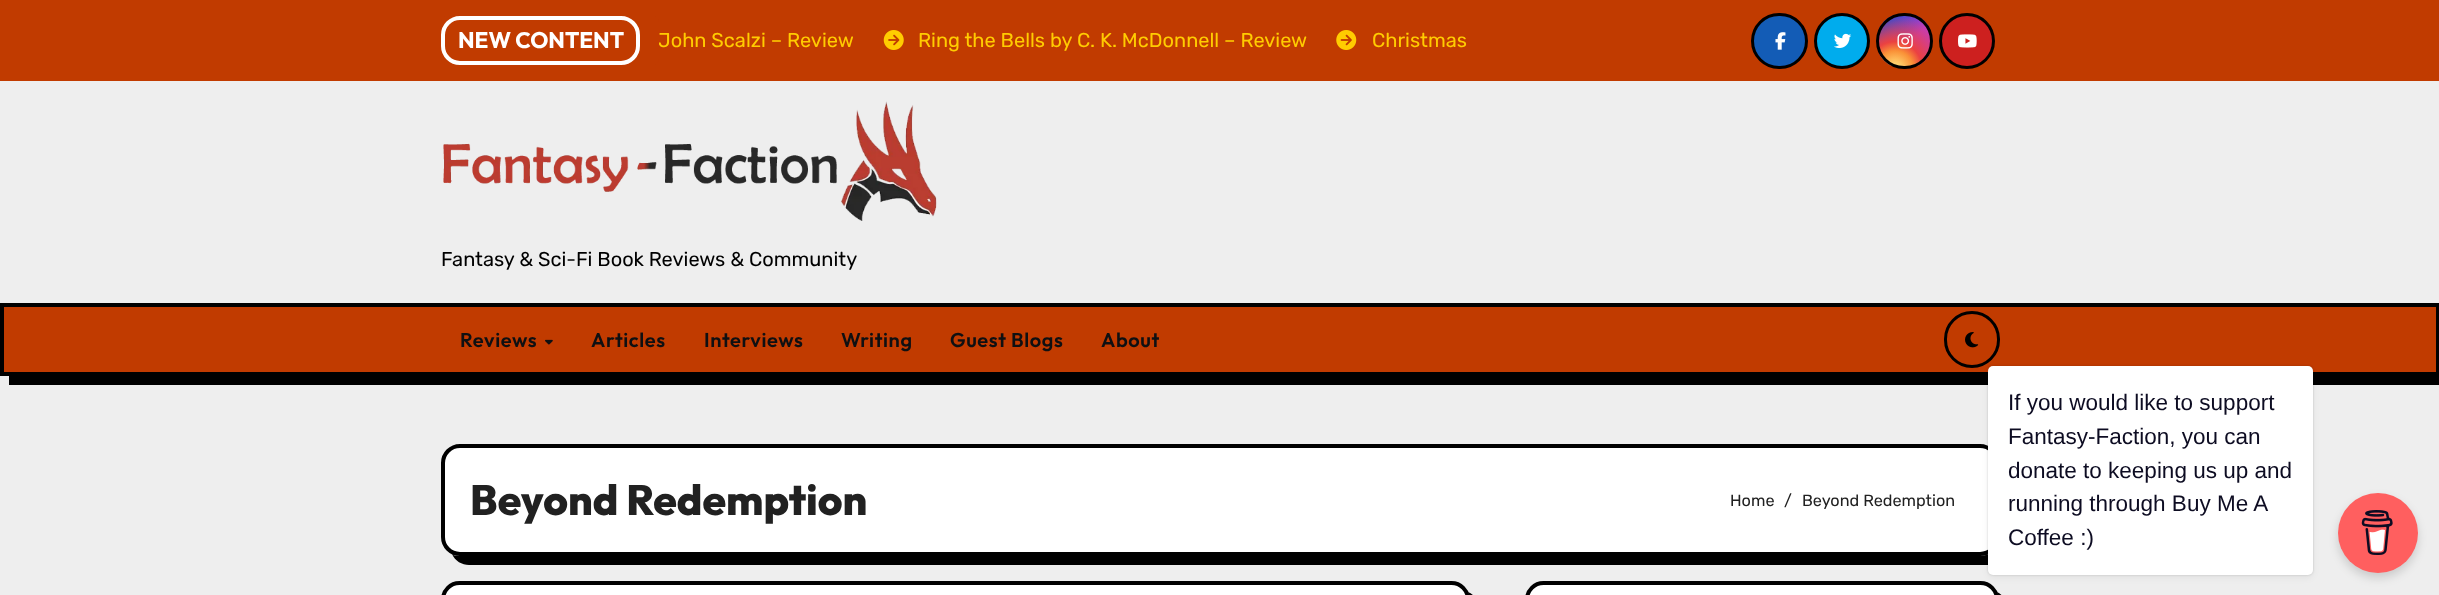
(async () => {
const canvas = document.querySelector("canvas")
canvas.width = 2439
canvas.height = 595
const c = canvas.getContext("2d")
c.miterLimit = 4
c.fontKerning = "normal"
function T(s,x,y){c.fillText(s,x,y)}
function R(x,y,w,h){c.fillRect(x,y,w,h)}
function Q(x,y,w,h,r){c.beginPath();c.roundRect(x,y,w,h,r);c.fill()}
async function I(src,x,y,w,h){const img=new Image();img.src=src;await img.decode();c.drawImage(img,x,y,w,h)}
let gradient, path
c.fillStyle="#eee"
R(0,0,2439,595)
c.fillStyle="#c13b00"
R(0,0,2439,81)
c.font="300 20px Rubik"
c.fillStyle="#fc0"
T("John Scalzi – Review",658,47)
c.fillStyle="#c13b00"
Q(441,16,218,49,6)
c.beginPath()
c.roundRect(443,18,195,45,17)
c.strokeStyle="#fff"
c.lineWidth=4
c.stroke()
c.font="bold 22.5px Outfit"
c.fillStyle="#fff"
T("NEW CONTENT",458,48)
await I("1.png",883,30,21,20)
c.font="300 20px Rubik"
c.fillStyle="#fc0"
T("Ring the Bells by C. K. McDonnell – Review",918,47)
await I("2.png",1336,30,21,20)
T("Christmas",1372,47)
c.fillStyle="#135cb6"
c.beginPath()
c.roundRect(1752.5,14.5,54,53,26.5)
c.fill()
c.strokeStyle="#000"
c.lineWidth=3
c.stroke()
await I("3.png",1775,32,11,18)
c.fillStyle="#00aced"
c.beginPath()
c.arc(1842,41,26.5,0,7)
c.fill()
c.stroke()
await I("4.png",1834,33,18,16)
c.save()
c.beginPath()
c.roundRect(1876,13,57,56,28)
c.clip()
gradient = c.createLinearGradient(1879,15,1930,66)
gradient.addColorStop(.12,"#234bd7")
gradient.addColorStop(.58,"#c33cbe")
c.fillStyle = gradient
R(1879,15,51,51)
gradient = c.createRadialGradient(1895,69,0,1895,69,65)
gradient.addColorStop(0,"#ffe17d")
gradient.addColorStop(.1,"#ffcd69")
gradient.addColorStop(.28,"#fa9137")
gradient.addColorStop(.42,"#eb4141")
gradient.addColorStop(.82,"#eb414100")
c.fillStyle = gradient
R(1879,16,51,50)
c.restore()
c.beginPath()
c.roundRect(1877.5,14.5,54,53,26.5)
c.stroke()
await I("5.png",1897,33,16,16)
c.fillStyle="#cd201f"
c.beginPath()
c.arc(1967,41,26.5,0,7)
c.fill()
c.stroke()
await I("6.png",1958,34,19,14)
await I("7.png",443,101,494,120)
c.fillStyle="#000"
T("Fantasy & Sci-Fi Book Reviews & Community",441,266)
path = new Path2D("M9 376v9h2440v-74h-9v65z")
c.fill(path)
c.fillStyle="#c13b00"
c.beginPath()
c.rect(2,305,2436,69)
c.fill()
c.lineWidth=4
c.stroke()
c.letterSpacing="0.6px"
c.font="600 20px Outfit"
c.fillStyle="#0f1012"
T("Reviews",460,347)
await I("8.png",545,339,8,6)
T("Articles",591,347)
T("Interviews",704,347)
T("Writing",841,347)
T("Guest Blogs",950,347)
T("About",1101,347)
c.beginPath()
c.roundRect(1945.5,312.5,53,54,26.5)
c.lineWidth=3
c.stroke()
await I("9.png",1965,332,14,16)
c.fillStyle="#000"
path = new Path2D("M452 554c3 7 10 11 17 11h1520c10 0 19-9 19-19v-74c0-8-4-14-11-17c1 2 2 5 2 7v76c0 10-9 18-19 18h-1520c-3 0-6 0-8-2z")
c.fill(path)
c.fillStyle="#fff"
c.beginPath()
c.roundRect(443,446,1554,108,17)
c.fill()
c.lineWidth=4
c.stroke()
c.letterSpacing="0px"
c.font="800 42.5px Outfit"
c.fillStyle="#212121"
T("Beyond Redemption",470,515)
c.font="300 16.25px Rubik"
T("Home",1730,506)
T("/",1784,506)
T("Beyond Redemption",1802,506)
c.fillStyle="#000"
path = new Path2D("M452 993c3 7 9 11 17 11h991c10 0 19-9 19-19v-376c0-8-4-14-11-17c1 2 2 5 2 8v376c0 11-8 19-19 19h-991c-3 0-6-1-8-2z")
c.fill(path)
c.fillStyle="#fff"
c.beginPath()
c.roundRect(443,583,1025,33,17)
c.fill()
c.stroke()
c.fillStyle="#000"
path = new Path2D("M1536 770c3 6 10 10 17 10h436c10 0 19-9 19-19v-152c0-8-5-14-11-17c1 2 2 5 2 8v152c0 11-9 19-19 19h-436c-3 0-6 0-8-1z")
c.fill(path)
c.fillStyle="#fff"
c.beginPath()
c.roundRect(1527,583,470,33,17)
c.fill()
c.stroke()
c.fillStyle="#00000026"
c.filter="blur(1px)"
c.beginPath()
c.roundRect(1988,366,325,209,5)
c.fill()
c.filter="none"
c.fillStyle="#0000000d"
c.filter="blur(3px)"
c.beginPath()
c.roundRect(1988,369,325,209,5)
c.fill()
c.filter="none"
c.fillStyle="#fff"
Q(1988,366,325,209,5)
c.font="22.5px Liberation Sans"
c.fillStyle="#0d0c22"
T("If you would like to support",2008,410)
T("Fantasy-Faction, you can",2008,444)
T("donate to keeping us up and",2008,478)
T("running through Buy Me A",2008,511)
T("Coffee :)",2008,545)
c.fillStyle="#00000026"
c.filter="blur(5px)"
c.beginPath()
c.roundRect(2338,498,80,80,40)
c.fill()
c.filter="none"
c.fillStyle="#ff5f5f"
c.beginPath()
c.arc(2378,533,40,0,7)
c.fill()
await I("10.png",2361,510,32,45)
})()
